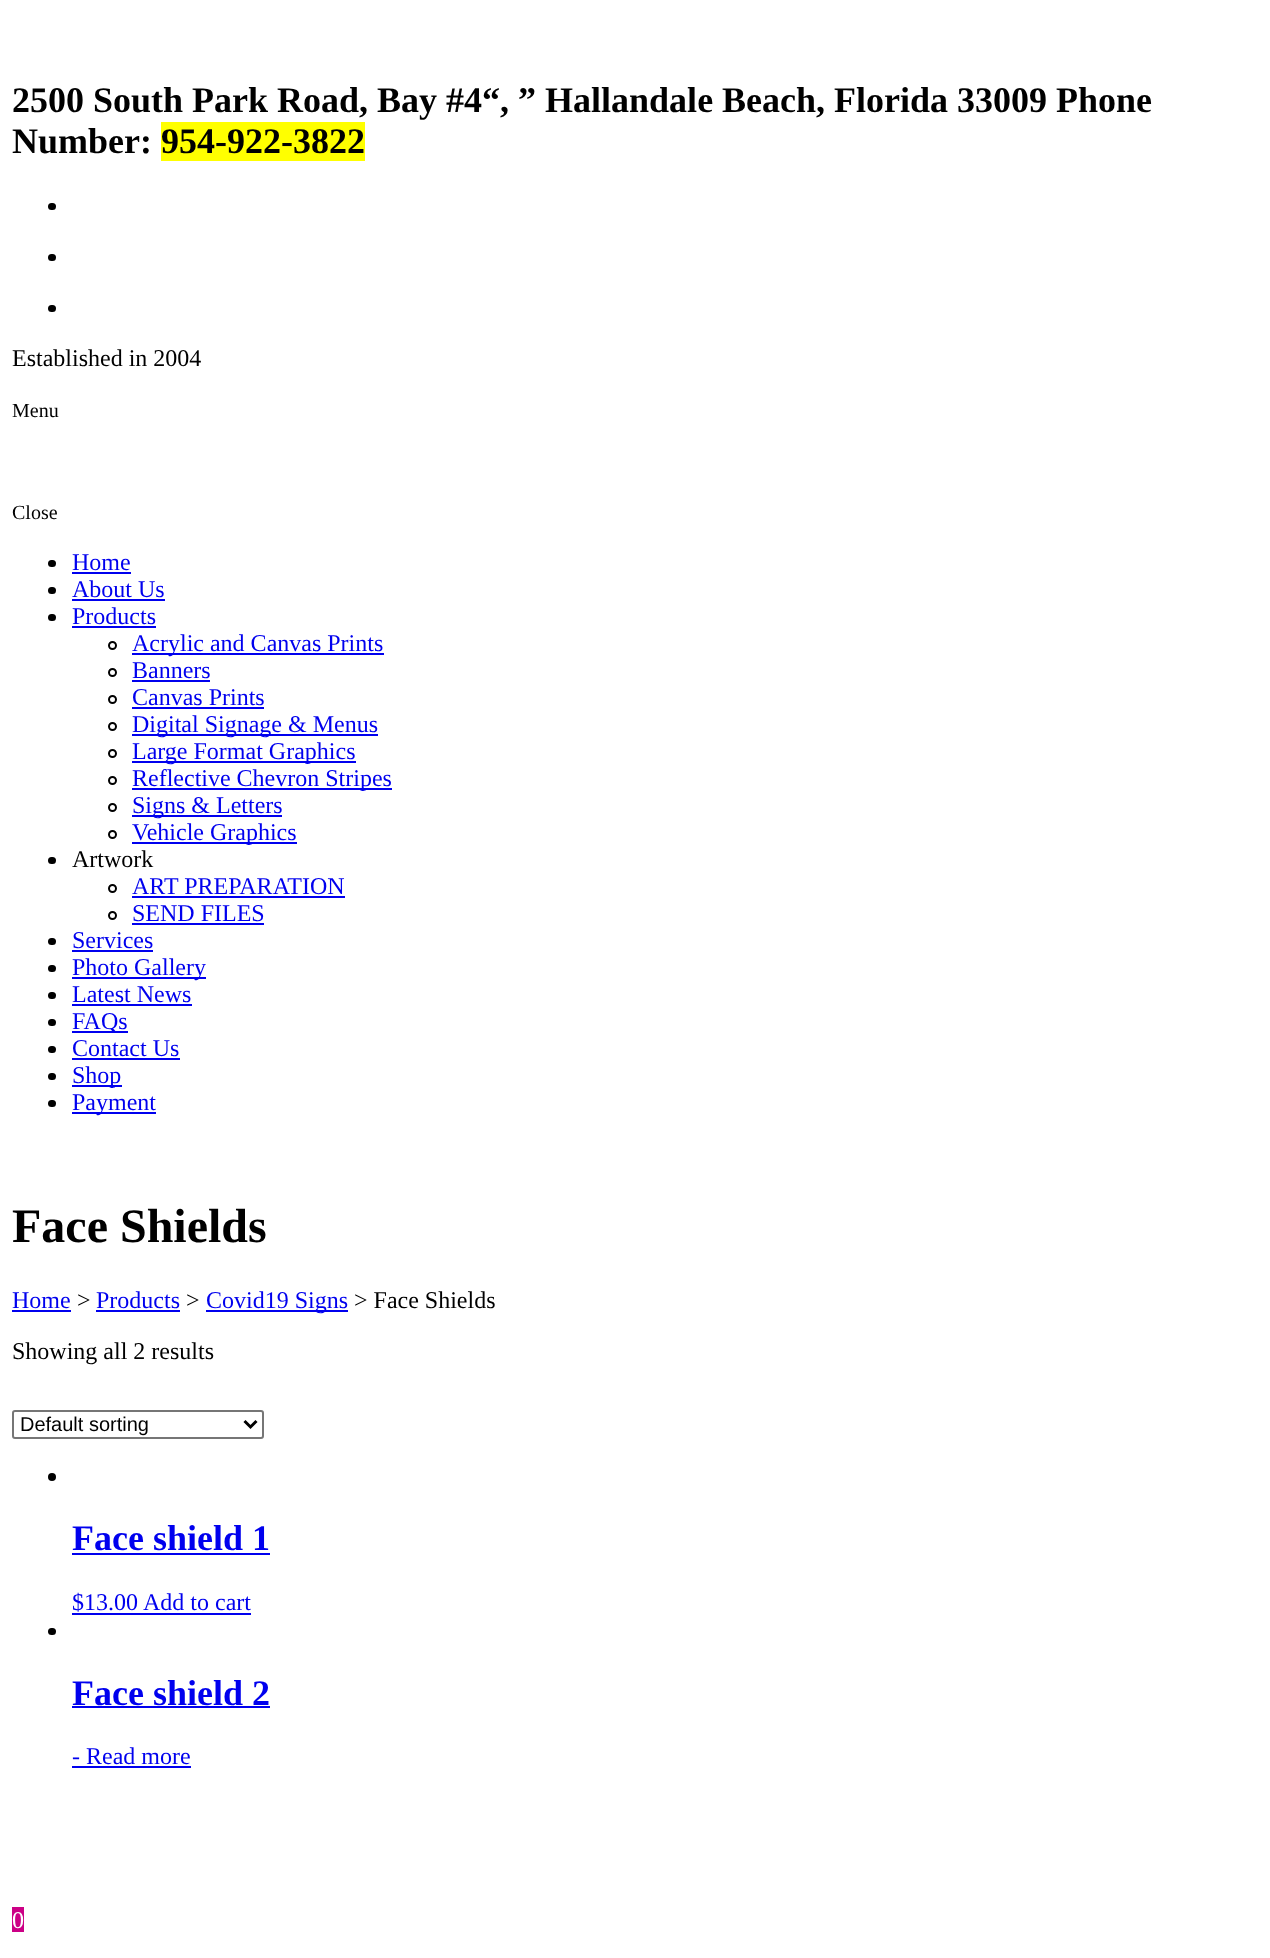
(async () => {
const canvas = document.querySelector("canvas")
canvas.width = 1270
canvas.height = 1958
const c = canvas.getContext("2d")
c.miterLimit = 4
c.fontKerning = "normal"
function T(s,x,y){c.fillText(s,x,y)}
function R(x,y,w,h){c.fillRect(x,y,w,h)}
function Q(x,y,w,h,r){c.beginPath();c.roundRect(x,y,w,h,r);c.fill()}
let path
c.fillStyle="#fff"
R(0,0,1270,1958)
c.font="bold 36px Liberation Serif"
c.fillStyle="#000"
T("2500 South Park Road, Bay #4“, ” Hallandale Beach, Florida 33009 Phone",12,112)
T("Number:",12,153)
c.fillStyle="#ff0"
R(161,122,204,39)
c.fillStyle="#000"
T("954-922-3822",161,153)
Q(48,203,8,7,3.5)
Q(48,254,8,7,3.5)
Q(48,305,8,7,3.5)
c.font="24px Liberation Serif"
T("Established in 2004",12,366)
c.font="20px Liberation Serif"
T("Menu",12,417)
T("Close",12,519)
Q(48,560,8,7,3.5)
c.font="24px Liberation Serif"
c.fillStyle="#00e"
T("Home",72,570)
R(72,572,59,2)
c.fillStyle="#000"
Q(48,587,8,7,3.5)
c.fillStyle="#00e"
T("About Us",72,597)
R(72,599,93,2)
c.fillStyle="#000"
Q(48,614,8,7,3.5)
c.fillStyle="#00e"
T("Products",72,624)
R(72,626,84,2)
c.beginPath()
c.arc(112.5,645.5,3.5,0,7)
c.strokeStyle="#000"
c.lineWidth=2
c.stroke()
R(132,653,252,2)
T("Acrylic and Canvas Prints",132,651)
c.beginPath()
c.arc(112.5,672.5,3.5,0,7)
c.stroke()
T("Banners",132,678)
R(132,680,78,2)
c.beginPath()
c.arc(112.5,699.5,3.5,0,7)
c.stroke()
T("Canvas Prints",132,705)
R(132,707,132,2)
c.beginPath()
c.arc(112.5,726.5,3.5,0,7)
c.stroke()
R(132,734,246,2)
T("Digital Signage & Menus",132,732)
c.beginPath()
c.arc(112.5,753.5,3.5,0,7)
c.stroke()
R(132,761,224,2)
T("Large Format Graphics",132,759)
c.beginPath()
c.arc(112.5,780.5,3.5,0,7)
c.stroke()
R(132,788,260,2)
T("Reflective Chevron Stripes",132,786)
c.beginPath()
c.arc(112.5,807.5,3.5,0,7)
c.stroke()
R(132,815,150,2)
T("Signs & Letters",132,813)
c.beginPath()
c.arc(112.5,834.5,3.5,0,7)
c.stroke()
R(132,842,165,2)
T("Vehicle Graphics",132,840)
c.fillStyle="#000"
Q(48,857,8,7,3.5)
T("Artwork",72,867)
c.beginPath()
c.arc(112.5,888.5,3.5,0,7)
c.stroke()
c.fillStyle="#00e"
T("ART PREPARATION",132,894)
R(132,896,213,2)
c.beginPath()
c.arc(112.5,915.5,3.5,0,7)
c.stroke()
T("SEND FILES",132,921)
R(132,923,132,2)
c.fillStyle="#000"
Q(48,938,8,7,3.5)
c.fillStyle="#00e"
T("Services",72,948)
R(72,950,81,2)
c.fillStyle="#000"
Q(48,965,8,7,3.5)
c.fillStyle="#00e"
R(72,977,134,2)
T("Photo Gallery",72,975)
c.fillStyle="#000"
Q(48,992,8,7,3.5)
c.fillStyle="#00e"
T("Latest News",72,1002)
R(72,1004,120,2)
c.fillStyle="#000"
Q(48,1019,8,7,3.5)
c.fillStyle="#00e"
R(72,1031,56,2)
T("FAQs",72,1029)
c.fillStyle="#000"
Q(48,1046,8,7,3.5)
c.fillStyle="#00e"
T("Contact Us",72,1056)
R(72,1058,108,2)
c.fillStyle="#000"
Q(48,1073,8,7,3.5)
c.fillStyle="#00e"
R(72,1085,50,2)
T("Shop",72,1083)
c.fillStyle="#000"
Q(48,1100,8,7,3.5)
c.fillStyle="#00e"
R(72,1112,84,2)
T("Payment",72,1110)
c.font="bold 48px Liberation Serif"
c.fillStyle="#000"
T("Face Shields",12,1242)
c.font="24px Liberation Serif"
c.fillStyle="#00e"
T("Home",12,1308)
R(12,1310,59,2)
c.fillStyle="#000"
T(">",77,1308)
c.fillStyle="#00e"
T("Products",96,1308)
R(96,1310,84,2)
c.fillStyle="#000"
T(">",186,1308)
c.fillStyle="#00e"
R(206,1310,142,2)
T("Covid19 Signs",206,1308)
c.fillStyle="#000"
T("> Face Shields",354,1308)
T("Showing all 2 results",12,1359)
c.beginPath()
c.roundRect(13,1411,250,27,2)
c.strokeStyle="#767676"
c.stroke()
path = new Path2D("M244.5 1421l6 6l6-6")
c.strokeStyle="#000"
c.lineWidth=3
c.stroke(path)
c.font="20px Liberation Sans"
T("Default sorting",20,1431)
c.beginPath()
c.arc(52,1477,4,0,7)
c.fill()
c.font="bold 36px Liberation Serif"
c.fillStyle="#00e"
T("Face shield 1",72,1550)
R(72,1553,198,2)
c.font="24px Liberation Serif"
T("$13.00",72,1610)
R(72,1613,179,2)
T("Add to cart",143,1610)
c.fillStyle="#000"
Q(48,1628,8,7,3.5)
c.font="bold 36px Liberation Serif"
c.fillStyle="#00e"
T("Face shield 2",72,1705)
R(72,1706,198,2)
c.font="24px Liberation Serif"
T("- Read more",72,1764)
R(72,1766,119,2)
c.fillStyle="#cc0086"
R(12,1907,12,25)
c.fillStyle="#fff"
T("0",12,1928)
})()
